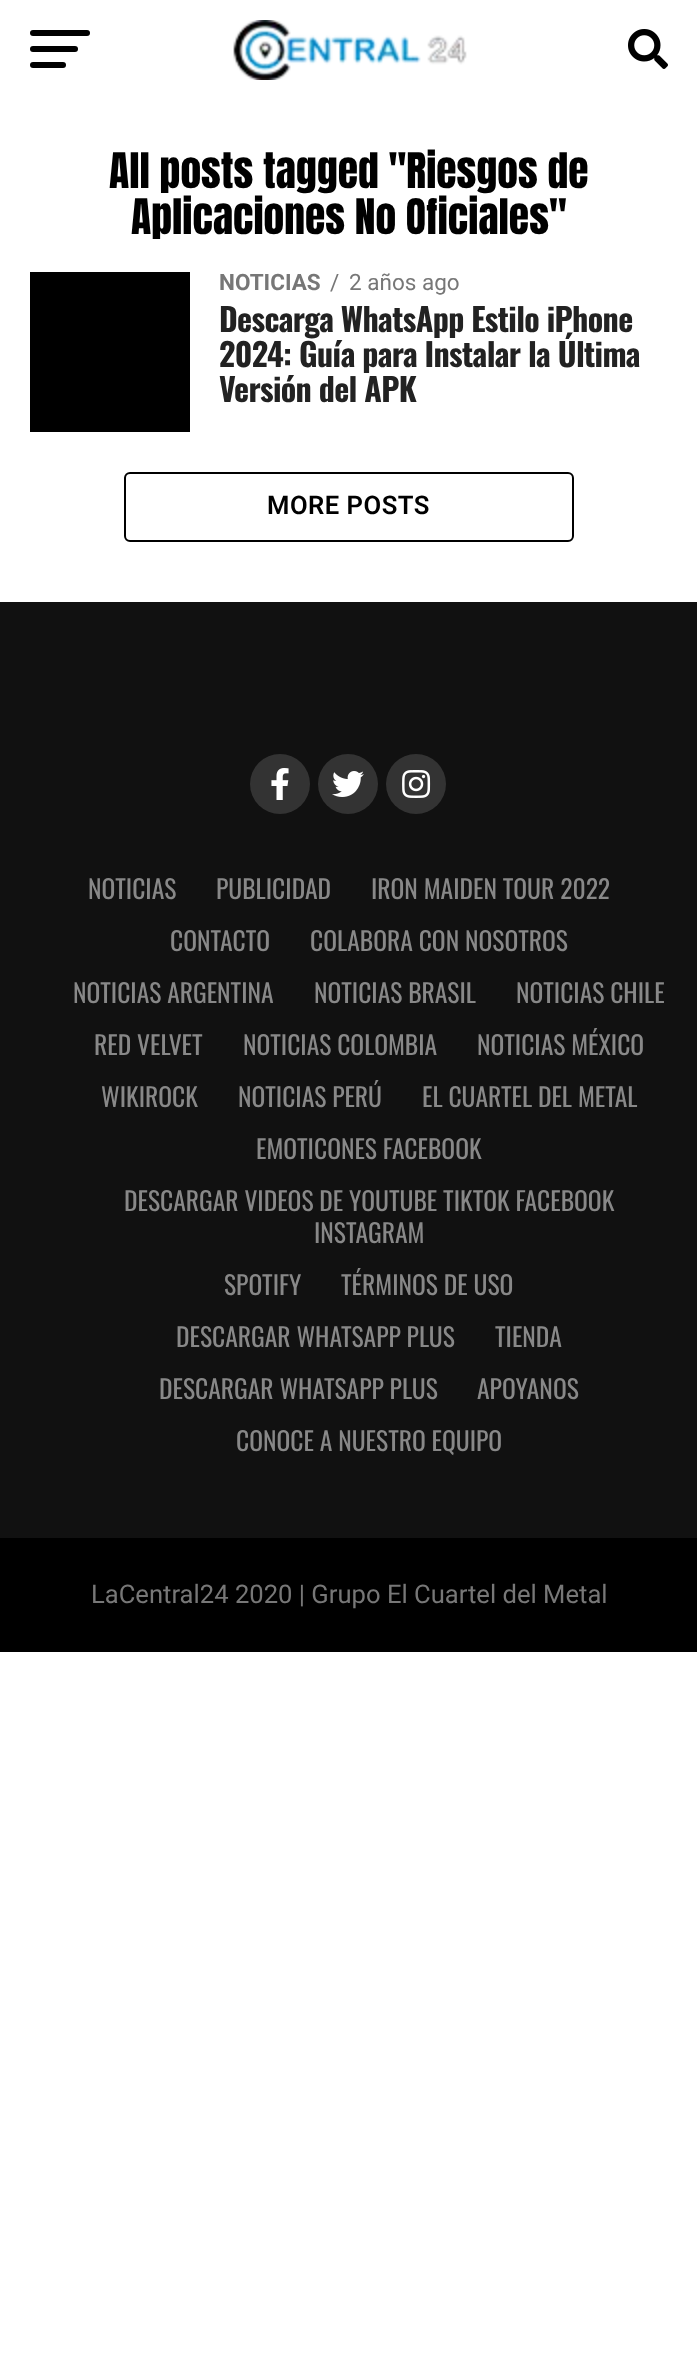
(async () => {
const canvas = document.querySelector("canvas")
canvas.width = 697
canvas.height = 2371
const c = canvas.getContext("2d")
c.miterLimit = 4
c.fontKerning = "normal"
function T(s,x,y){c.fillText(s,x,y)}
function R(x,y,w,h){c.fillRect(x,y,w,h)}
function Q(x,y,w,h,r){c.beginPath();c.roundRect(x,y,w,h,r);c.fill()}
async function I(src,x,y,w,h){const img=new Image();img.src=src;await img.decode();c.drawImage(img,x,y,w,h)}
c.fillStyle="#fff"
R(0,0,697,2371)
c.fillStyle="#000"
Q(30,30,60,6,3)
Q(30,46,48,6,3)
Q(30,62,36,6,3)
await I("1.png",233,20,234,60)
await I("2.png",628,29,40,40)
c.font="41.6px Anton"
T("All posts tagged \"Riesgos de",109,188)
T("Aplicaciones No Oficiales\"",131,234)
R(30,272,160,160)
c.font="bold 22.5px Roboto"
c.fillStyle="#777"
T("NOTICIAS",219,290)
c.font="22.5px Roboto"
T("/",330,290)
T("2 años ago",349,290)
c.letterSpacing="-0.65px"
c.font="bold 32px Oswald"
c.fillStyle="#222"
T("Descarga WhatsApp Estilo iPhone",219,332)
T("2024: Guía para Instalar la Última",219,367)
T("Versión del APK",219,402)
c.beginPath()
c.roundRect(125,473,448,68,5)
c.strokeStyle="#000"
c.lineWidth=2
c.stroke()
c.letterSpacing="0.5px"
c.font="600 25.6px Roboto"
c.fillStyle="#000"
T("MORE POSTS",267,514)
c.fillStyle="#111"
R(0,602,697,936)
c.fillStyle="#333"
c.beginPath()
c.arc(280,784,30,0,7)
c.fill()
await I("3.png",271,768,18,32)
c.beginPath()
c.arc(348,784,30,0,7)
c.fill()
await I("4.png",332,771,32,26)
c.beginPath()
c.arc(416,784,30,0,7)
c.fill()
await I("5.png",402,770,29,28)
c.letterSpacing="0px"
c.font="25.6px Oswald"
c.fillStyle="#888"
T("NOTICIAS",88,899)
T("PUBLICIDAD",216,899)
T("IRON MAIDEN TOUR 2022",371,899)
T("CONTACTO",170,951)
T("COLABORA CON NOSOTROS",310,951)
T("NOTICIAS ARGENTINA",73,1003)
T("NOTICIAS BRASIL",314,1003)
T("NOTICIAS CHILE",516,1003)
T("RED VELVET",94,1055)
T("NOTICIAS COLOMBIA",243,1055)
T("NOTICIAS MÉXICO",477,1055)
T("WIKIROCK",101,1107)
T("NOTICIAS PERÚ",238,1107)
T("EL CUARTEL DEL METAL",422,1107)
T("EMOTICONES FACEBOOK",256,1159)
T("DESCARGAR VIDEOS DE YOUTUBE TIKTOK FACEBOOK",124,1211)
T("INSTAGRAM",314,1243)
T("SPOTIFY",224,1295)
T("TÉRMINOS DE USO",341,1295)
T("DESCARGAR WHATSAPP PLUS",176,1347)
T("TIENDA",495,1347)
T("DESCARGAR WHATSAPP PLUS",159,1399)
T("APOYANOS",477,1399)
T("CONOCE A NUESTRO EQUIPO",236,1451)
c.fillStyle="#000"
R(0,1538,697,114)
c.font="25.6px Roboto"
c.fillStyle="#777"
T("LaCentral24 2020 | Grupo El Cuartel del Metal",91,1603)
})()
